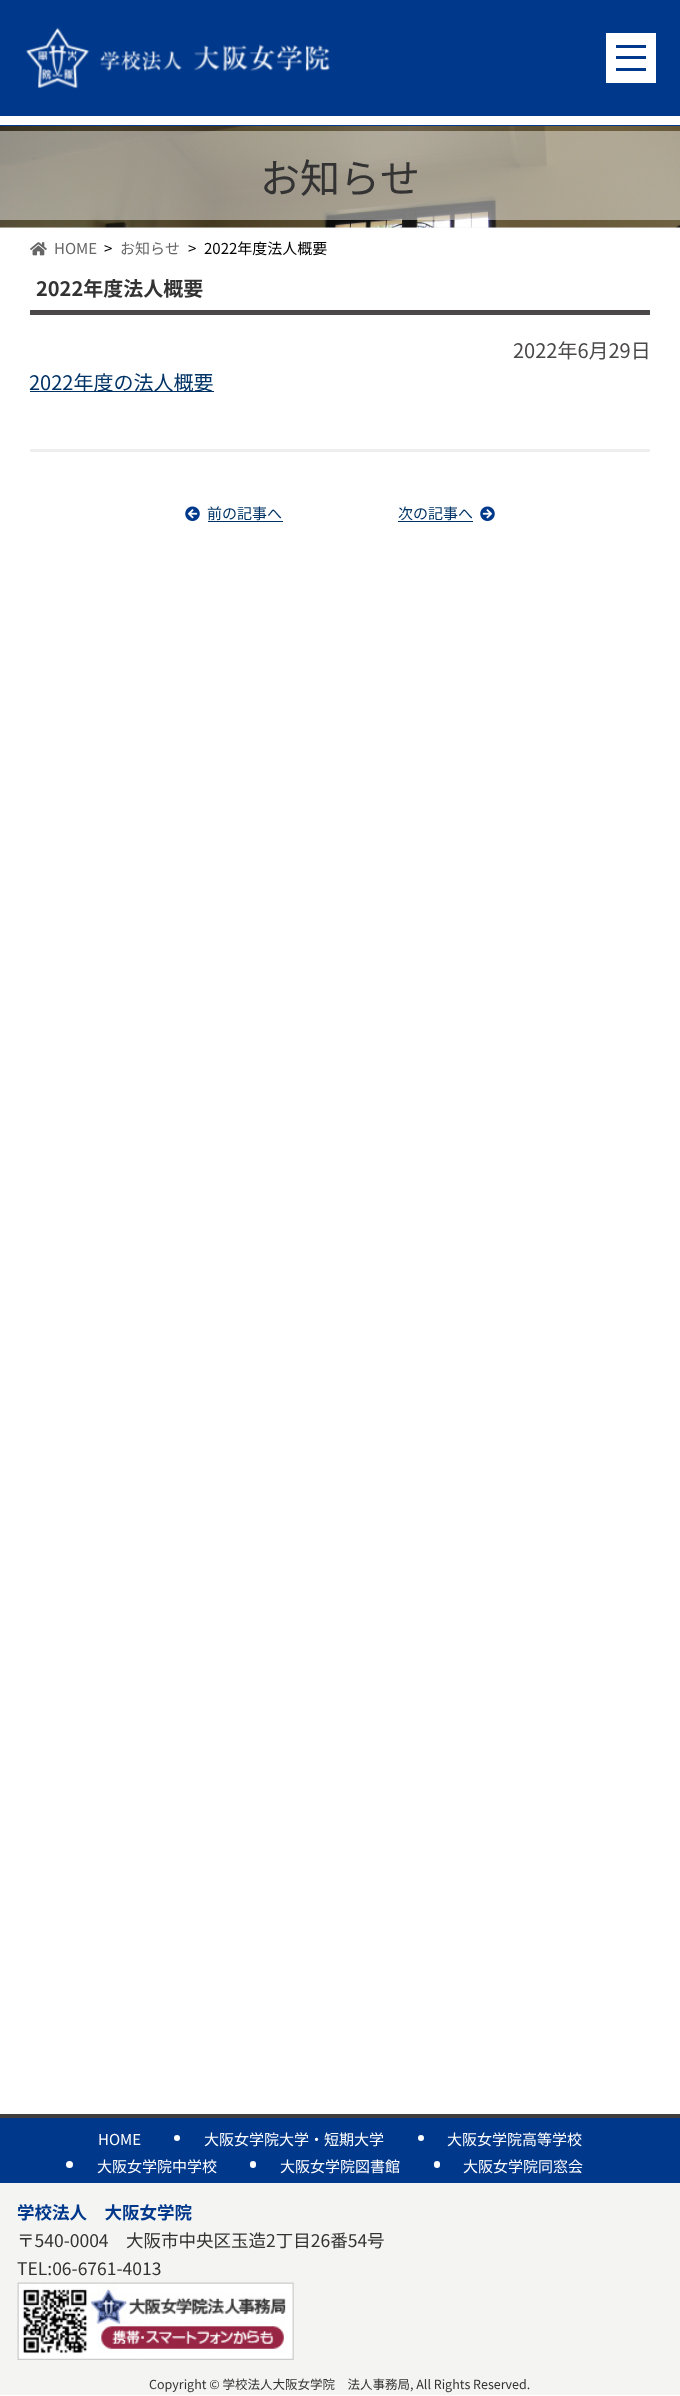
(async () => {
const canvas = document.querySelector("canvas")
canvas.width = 680
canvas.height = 2396
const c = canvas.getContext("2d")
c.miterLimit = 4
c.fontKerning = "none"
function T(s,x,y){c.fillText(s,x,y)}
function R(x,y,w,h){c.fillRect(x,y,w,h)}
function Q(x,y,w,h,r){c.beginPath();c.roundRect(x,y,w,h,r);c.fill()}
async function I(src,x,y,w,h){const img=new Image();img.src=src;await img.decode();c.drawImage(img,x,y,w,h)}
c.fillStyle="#fff"
R(0,0,680,2396)
c.fillStyle="#00388b"
R(0,125,680,1)
R(0,0,680,116)
await I("1.png",25,27,305,62)
c.fillStyle="#fff"
R(606,33,50,50)
c.fillStyle="#00388b"
R(616,45,30,3)
R(616,56,30,3)
R(616,68,30,3)
c.fillStyle="#f3f3f3"
R(0,227,680,1)
await I("2.png",0,126,680,102)
c.fillStyle="#ffffff75"
R(0,131,680,89)
c.font="40px Noto Sans JP"
c.fillStyle="#333"
T("お知らせ",260,193)
await I("3.png",30,242,17,14)
c.font="15px Noto Sans JP"
c.fillStyle="#666"
T("HOME",54,254)
c.fillStyle="#000"
T(">",104,254)
c.fillStyle="#666"
T("お知らせ",120,254)
c.fillStyle="#000"
T(">",188,254)
T("2022年度法人概要",204,254)
c.fillStyle="#4a4848"
R(30,310,620,5)
c.font="bold 20px Noto Sans JP"
c.fillStyle="#333"
T("2022年度法人概要",36,296)
c.font="20px Noto Sans JP"
c.fillStyle="#4a4848"
T("2022年6月29日",513,358)
c.fillStyle="#036"
R(30,391,184,1)
T("2022年度の法人概要",29,390)
c.fillStyle="#eee"
R(30,449,620,3)
await I("4.png",185,506,15,15)
c.font="15px Noto Sans JP"
c.fillStyle="#036"
T("前の記事へ",207,519)
R(208,521,75,1)
T("次の記事へ",398,519)
R(398,521,75,1)
await I("5.png",480,506,15,15)
c.fillStyle="#f4f4f2"
R(0,2183,680,212)
c.fillStyle="#403d3d"
R(0,2114,680,4)
c.fillStyle="#00388b"
R(0,2118,680,65)
c.fillStyle="#fff"
T("HOME",98,2145)
c.beginPath()
c.arc(177,2138,3,0,7)
c.fill()
T("大阪女学院大学・短期大学",204,2145)
c.beginPath()
c.arc(421,2138,3,0,7)
c.fill()
T("大阪女学院高等学校",447,2145)
c.beginPath()
c.arc(69.5,2164.5,3.5,0,7)
c.fill()
T("大阪女学院中学校",97,2172)
Q(250,2161,6,7,3)
T("大阪女学院図書館",280,2172)
Q(434,2161,6,7,3)
T("大阪女学院同窓会",463,2172)
c.font="bold 17.5px Noto Sans JP"
c.fillStyle="#00388b"
T("学校法人　大阪女学院",17,2219)
c.font="17.5px Noto Sans JP"
c.fillStyle="#333"
T("〒540-0004　大阪市中央区玉造2丁目26番54号",17,2247)
T("TEL:06-6761-4013",17,2275)
await I("6.png",17,2282,277,78)
c.font="12.5px Noto Sans JP"
T("Copyright © 学校法人大阪女学院　法人事務局, All Rights Reserved.",149,2389)
})()
